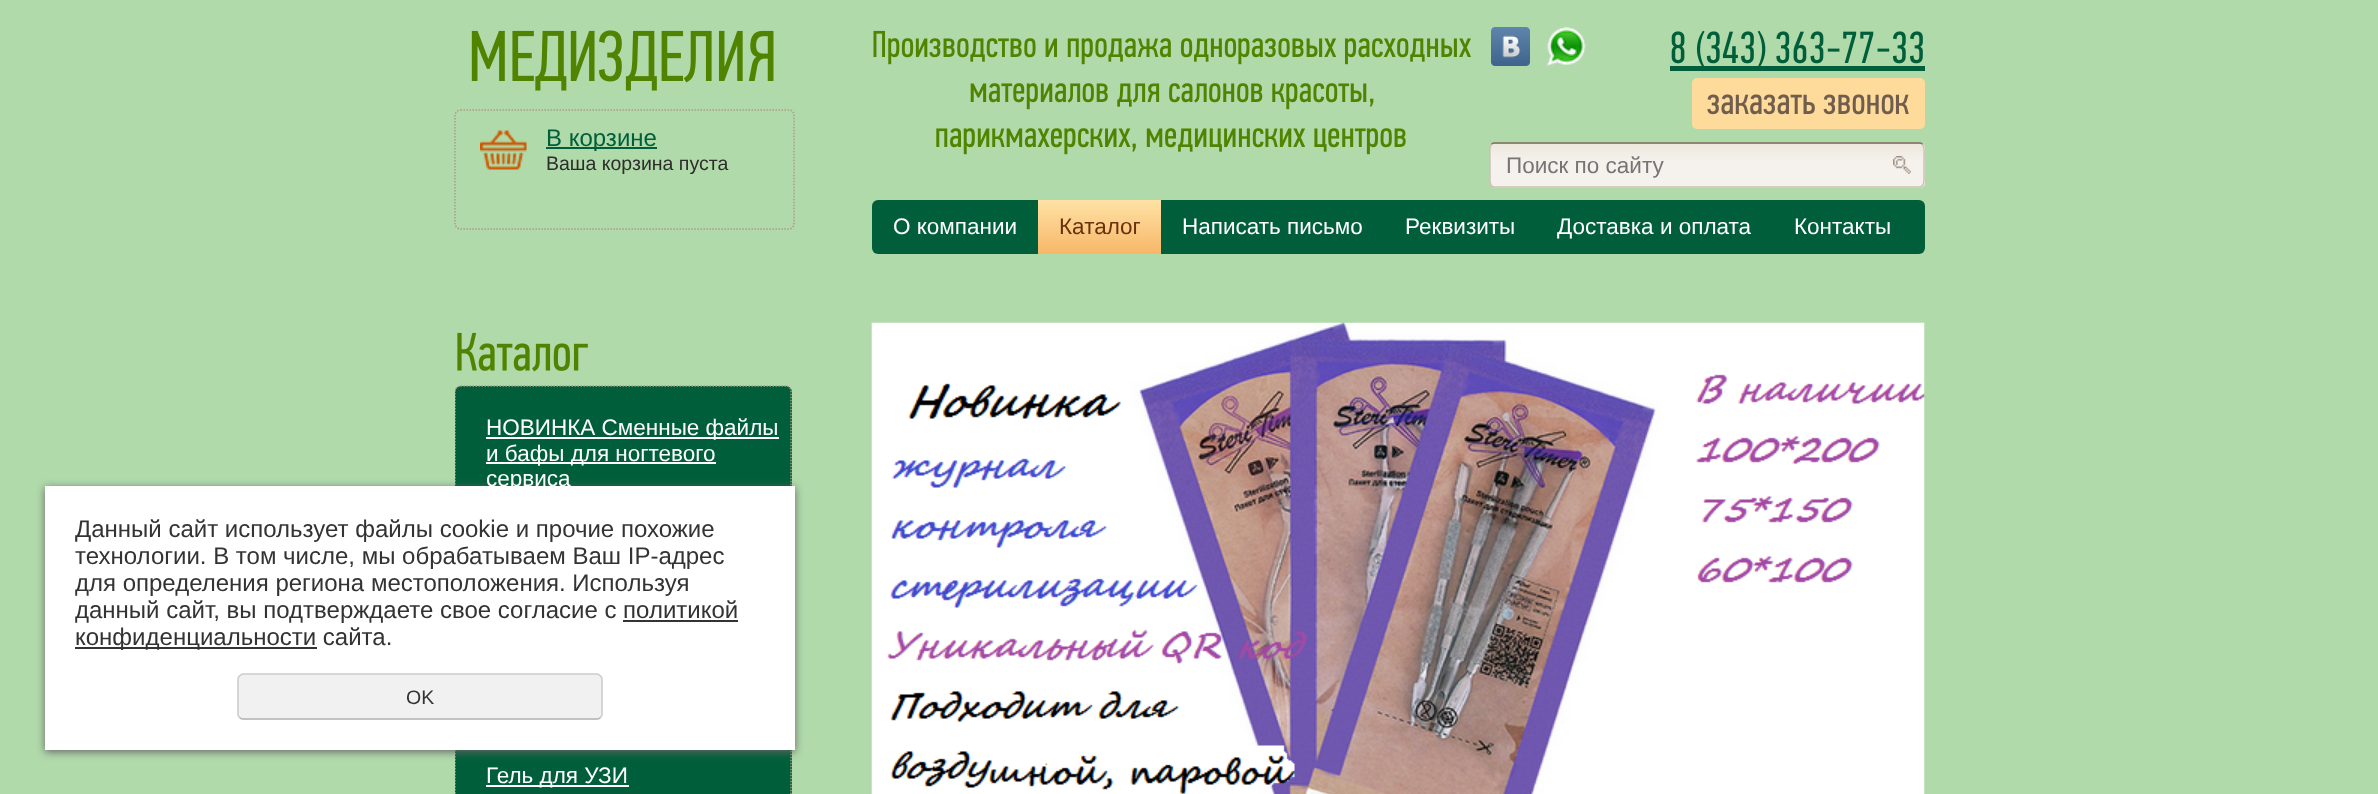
(async () => {
const canvas = document.querySelector("canvas")
canvas.width = 2378
canvas.height = 794
const c = canvas.getContext("2d")
c.miterLimit = 4
c.fontKerning = "normal"
function T(s,x,y){c.fillText(s,x,y)}
function R(x,y,w,h){c.fillRect(x,y,w,h)}
function Q(x,y,w,h,r){c.beginPath();c.roundRect(x,y,w,h,r);c.fill()}
async function I(src,x,y,w,h){const img=new Image();img.src=src;await img.decode();c.drawImage(img,x,y,w,h)}
let gradient, path
c.fillStyle="#b0daaa"
R(0,0,2378,794)
c.fillStyle="#005f3a"
Q(455,386,337,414,6)
c.save()
c.beginPath()
c.rect(455,321,337,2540)
c.clip()
path = new Path2D("M460.5 386h325.5c3 0 5 2.5 5 5.5v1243.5c0 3-2 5-5 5h-325.5c-3 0-5.5-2-5.5-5v-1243.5c0-3 2.5-5.5 5.5-5.5z")
c.strokeStyle="#ae9a88"
c.lineWidth=1.5
c.setLineDash([1.5,1.5])
c.stroke(path)
c.restore()
c.fillStyle="#666"
c.filter="blur(4px)"
c.beginPath()
c.rect(45,488,750,264)
c.fill()
c.filter="none"
c.fillStyle="#fff"
R(45,486,750,264)
c.font="24px Liberation Sans"
c.fillStyle="#333"
T("Данный сайт использует файлы cookie и прочие похожие",75,537)
T("технологии. В том числе, мы обрабатываем Ваш IP-адрес",75,564)
T("для определения региона местоположения. Используя",75,591)
T("данный сайт, вы подтверждаете свое согласие с политикой",75,618)
R(75,647,242,2)
T("конфиденциальности сайта.",75,645)
R(623,620,115,2)
c.fillStyle="#f1f1f1"
Q(237,674,366,46,6)
path = new Path2D("M600.5 717.5c-1 1-2 1.5-3.5 1.5h-354c-1.5 0-2.5-.5-3.5-1.5")
c.strokeStyle="#b3b3b3"
c.lineWidth=1.5
c.stroke(path)
path = new Path2D("M239.5 717.5c-1-1-1.5-2-1.5-3.5v-34.5c0-1.5 .5-2.5 1.5-3.5c1-1 2-2 3.5-2h354c1.5 0 2.5 1 3.5 2c1 1 1.5 2 1.5 3.5v34.5c0 1.5-.5 2.5-1.5 3.5")
c.strokeStyle="#ccc"
c.stroke(path)
c.font="19.5px Liberation Sans"
c.fillStyle="#333"
T("OK",406,704)
await I("1.png",471,30,303,61)
path = new Path2D("M460.5 110h328.5c3 0 5 2.5 5 5.5v108c0 3-2 5.5-5 5.5h-328.5c-3 0-5.5-2.5-5.5-5.5v-108c0-3 2.5-5.5 5.5-5.5z")
c.strokeStyle="#ae9a88"
c.setLineDash([1.5,1.5])
c.stroke(path)
await I("2.png",480,130,47,40)
c.fillStyle="#005f3a"
R(546,147,111,2)
c.font="24px Liberation Sans"
T("В корзине",546,146)
c.font="19.5px Liberation Sans"
c.fillStyle="#2e2d2c"
T("Ваша корзина пуста",546,170)
await I("3.png",873,30,598,35)
await I("4.png",970,83,404,27)
await I("5.png",936,128,470,27)
await I("6.png",1491,27,39,39)
await I("7.png",1546,27,40,39)
await I("8.png",1671,30,252,36)
c.fillStyle="#005f3a"
R(1670,66,255,5)
c.fillStyle="#fedb9a"
Q(1692,78,233,51,5)
await I("9.png",1707,94,202,21)
c.save()
c.beginPath()
c.roundRect(1490,143,435,45,5)
c.clip()
gradient = c.createLinearGradient(1707,144,1707,186)
gradient.addColorStop(0,"#eee8dd")
gradient.addColorStop(.43,"#f5f2ed")
gradient.addColorStop(1,"#f5f2ee")
c.fillStyle = gradient
R(1490,144,435,42)
gradient = c.createLinearGradient(1707,186,1707,228)
gradient.addColorStop(0,"#eee8dd")
gradient.addColorStop(.43,"#f5f2ed")
gradient.addColorStop(1,"#f5f2ee")
c.fillStyle = gradient
R(1490,186,435,2)
c.restore()
path = new Path2D("M1491.5 144.5c.5-1 1.5-1.5 2.5-1.5h426c1 0 2 .5 2.5 1.5")
c.strokeStyle="#816d5f"
c.setLineDash([])
c.stroke(path)
path = new Path2D("M1922.5 144.5c2.5 2.5 1.5 11.5 1.5 14.5v18c0 3 1 9.5-4 10h-426c-5-.5-4-7-4-10v-18c0-3-1-12 1.5-14.5")
c.strokeStyle="#cec1b4"
c.stroke(path)
c.font="22.5px Liberation Sans"
c.fillStyle="#757575"
T("Поиск по сайту",1506,173)
await I("10.png",1893,156,18,18)
c.fillStyle="#005f3a"
Q(872,200,1053,54,6)
c.fillStyle="#fff"
T("О компании",893,234)
gradient = c.createLinearGradient(1100,200,1100,254)
gradient.addColorStop(0,"#ffe2a5")
gradient.addColorStop(1,"#f7b769")
c.fillStyle = gradient
R(1038,200,123,54)
c.fillStyle="#6b310f"
T("Каталог",1059,234)
c.fillStyle="#fff"
T("Написать письмо",1182,234)
T("Реквизиты",1405,234)
T("Доставка и оплата",1557,234)
T("Контакты",1794,234)
await I("11.png",457,332,131,40)
R(486,437,293,2)
T("НОВИНКА Сменные файлы",486,435)
R(486,462,230,2)
T("и бафы для ногтевого",486,461)
T("сервиса",486,486)
R(486,785,143,2)
T("Гель для УЗИ",486,783)
await I("12.png",871,322,1054,472)
})()
